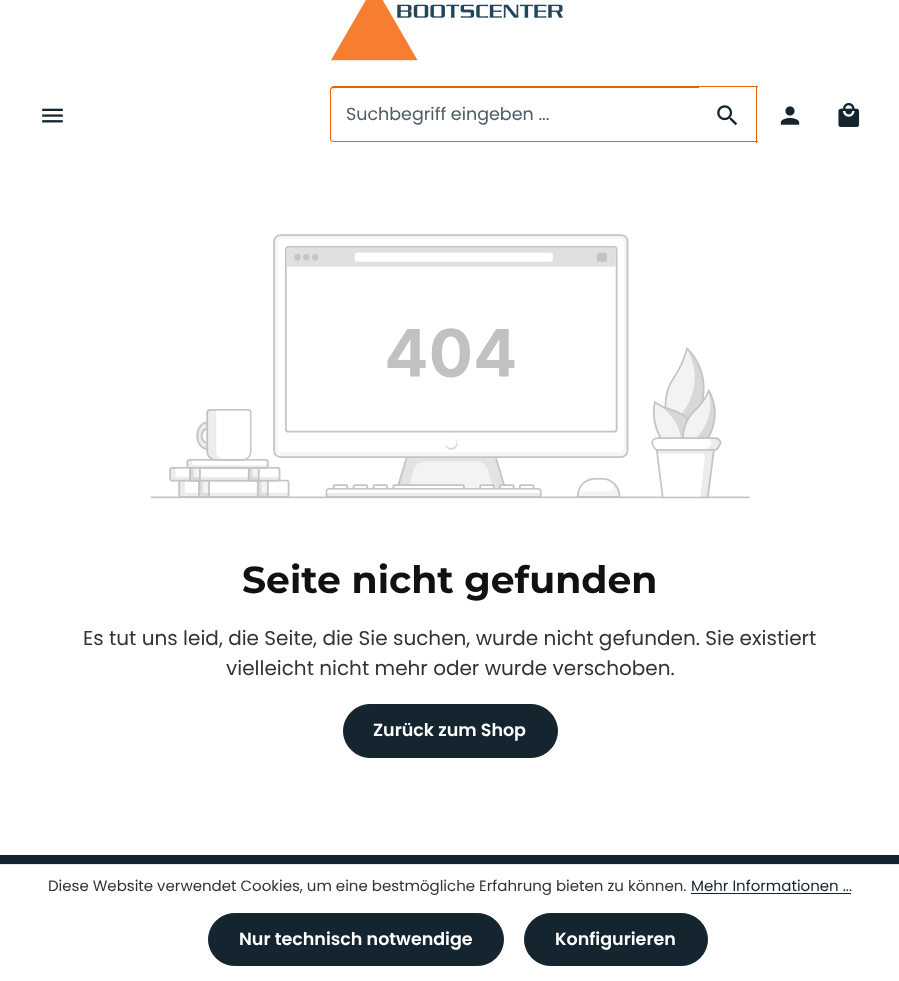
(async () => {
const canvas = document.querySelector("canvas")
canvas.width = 899
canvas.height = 981
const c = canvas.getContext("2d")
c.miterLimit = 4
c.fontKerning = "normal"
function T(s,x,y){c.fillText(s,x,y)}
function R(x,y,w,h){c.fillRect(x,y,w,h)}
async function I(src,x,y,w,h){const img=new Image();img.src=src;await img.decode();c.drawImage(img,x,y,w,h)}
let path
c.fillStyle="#fff"
R(0,0,899,981)
await I("1.png",331,0,232,61)
await I("2.png",42,108,21,15)
c.fillStyle="#eb6009"
path = new Path2D("M334 86h366v56h-366c-2 0-4-1-4-3v-49c0-2 2-4 4-4zm0 2h366v53h-366c-2 0-3-1-3-2v-49c0-1 1-2 3-2z")
c.fill(path,"evenodd")
c.font="17.5px Poppins"
c.fillStyle="#4f5c64"
T("Suchbegriff eingeben ...",346,120)
c.fillStyle="#fff"
R(699,87,1,55)
c.fillStyle="#eb6009"
R(699,86,59,1)
R(756,86,1,57)
R(699,141,59,1)
await I("3.png",717,105,21,21)
await I("4.png",780,106,20,19)
await I("5.png",838,102,22,25)
await I("6.png",150,234,600,265)
c.font="bold 37.75px Montserrat"
c.fillStyle="#111"
T("Seite nicht gefunden",242,593)
c.font="20px Poppins"
c.fillStyle="#333"
T("Es tut uns leid, die Seite, die Sie suchen, wurde nicht gefunden. Sie existiert",83,645)
T("vielleicht nicht mehr oder wurde verschoben.",226,675)
c.fillStyle="#142530"
c.beginPath()
c.roundRect(343.5,704.5,214,53,26.5)
c.fill()
c.strokeStyle="#142530"
c.stroke()
c.font="600 17.5px Poppins"
c.fillStyle="#fff"
T("Zurück zum Shop",373,736)
c.fillStyle="#142530"
R(0,855,899,9)
c.fillStyle="#e8e7e8"
R(0,864,899,1)
c.font="15px Poppins"
c.fillStyle="#333"
T("Diese Website verwendet Cookies, um eine bestmögliche Erfahrung bieten zu können.",48,891)
c.fillStyle="#142530"
T("Mehr Informationen ...",691,891)
R(691,893,160,1)
c.beginPath()
c.roundRect(208.5,913.5,295,52,26)
c.fill()
c.stroke()
c.font="600 17.5px Poppins"
c.fillStyle="#fff"
T("Nur technisch notwendige",239,945)
c.fillStyle="#142530"
c.beginPath()
c.roundRect(524.5,913.5,183,52,26)
c.fill()
c.stroke()
c.fillStyle="#fff"
T("Konfigurieren",555,945)
})()
